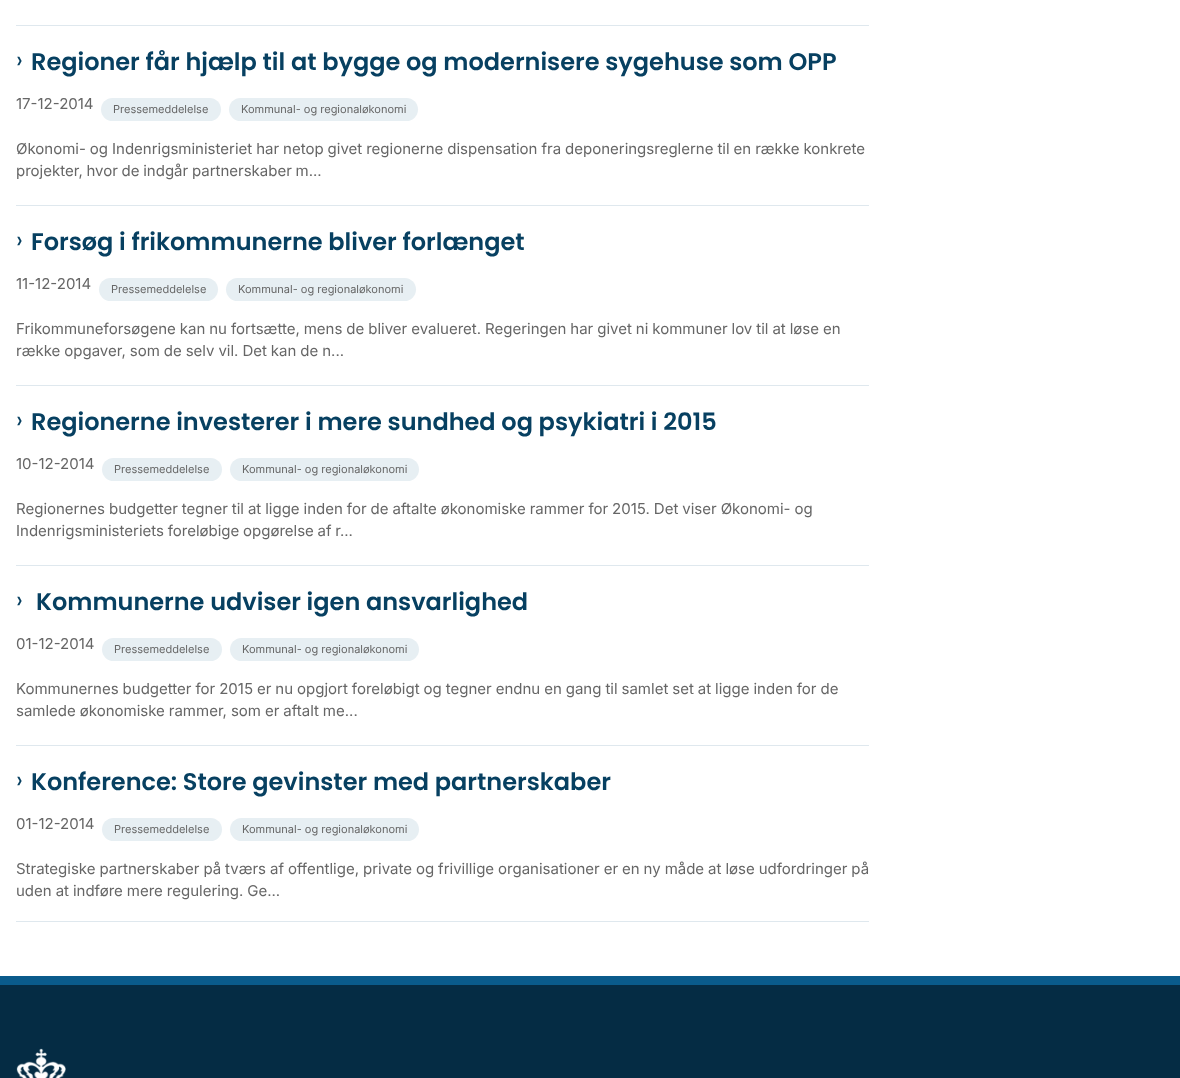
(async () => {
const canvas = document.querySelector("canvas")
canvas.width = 1180
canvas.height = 1078
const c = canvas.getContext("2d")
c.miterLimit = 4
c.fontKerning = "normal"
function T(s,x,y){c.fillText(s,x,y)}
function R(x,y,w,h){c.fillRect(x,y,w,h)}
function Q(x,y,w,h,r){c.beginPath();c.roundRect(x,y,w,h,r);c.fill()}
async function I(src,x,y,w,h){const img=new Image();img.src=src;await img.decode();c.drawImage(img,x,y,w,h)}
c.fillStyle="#fff"
R(0,0,1180,1078)
c.fillStyle="#dfe8ee"
R(16,25,853,1)
c.font="24px Poppins"
c.fillStyle="#074061"
T("›",16,68)
c.font="600 24px Poppins"
T("Regioner får hjælp til at bygge og modernisere sygehuse som OPP",31,70)
c.font="15px Inter"
c.fillStyle="#666"
T("17-12-2014",16,109)
c.fillStyle="#e7eff3"
Q(101,98,120,23,11.5)
c.font="11px Inter"
c.fillStyle="#666"
T("Pressemeddelelse",113,113)
c.fillStyle="#e7eff3"
Q(229,98,189,23,11.5)
c.fillStyle="#666"
T("Kommunal- og regionaløkonomi",241,113)
c.wordSpacing="-0.25px"
c.font="15px Inter"
T("Økonomi- og Indenrigsministeriet har netop givet regionerne dispensation fra deponeringsreglerne til en række konkrete",16,154)
c.wordSpacing="-0.5px"
T("projekter, hvor de indgår partnerskaber m...",16,176)
c.fillStyle="#dfe8ee"
R(16,205,853,1)
c.wordSpacing="0px"
c.font="24px Poppins"
c.fillStyle="#074061"
T("›",16,248)
c.font="600 24px Poppins"
T("Forsøg i frikommunerne bliver forlænget",31,250)
c.font="15px Inter"
c.fillStyle="#666"
T("11-12-2014",16,289)
c.fillStyle="#e7eff3"
Q(99,278,119,23,11.5)
c.font="11px Inter"
c.fillStyle="#666"
T("Pressemeddelelse",111,293)
c.fillStyle="#e7eff3"
Q(226,278,190,23,11.5)
c.fillStyle="#666"
T("Kommunal- og regionaløkonomi",238,293)
c.wordSpacing="-0.25px"
c.font="15px Inter"
T("Frikommuneforsøgene kan nu fortsætte, mens de bliver evalueret. Regeringen har givet ni kommuner lov til at løse en",16,334)
T("række opgaver, som de selv vil. Det kan de n...",16,356)
c.fillStyle="#dfe8ee"
R(16,385,853,1)
c.wordSpacing="0px"
c.font="24px Poppins"
c.fillStyle="#074061"
T("›",16,428)
c.font="600 24px Poppins"
T("Regionerne investerer i mere sundhed og psykiatri i 2015",31,430)
c.font="15px Inter"
c.fillStyle="#666"
T("10-12-2014",16,469)
c.fillStyle="#e7eff3"
Q(102,458,120,23,11.5)
c.font="11px Inter"
c.fillStyle="#666"
T("Pressemeddelelse",114,473)
c.fillStyle="#e7eff3"
Q(230,458,189,23,11.5)
c.fillStyle="#666"
T("Kommunal- og regionaløkonomi",242,473)
c.wordSpacing="-0.25px"
c.font="15px Inter"
T("Regionernes budgetter tegner til at ligge inden for de aftalte økonomiske rammer for 2015. Det viser Økonomi- og",16,514)
c.wordSpacing="-0.5px"
T("Indenrigsministeriets foreløbige opgørelse af r...",16,536)
c.fillStyle="#dfe8ee"
R(16,565,853,1)
c.wordSpacing="0px"
c.font="24px Poppins"
c.fillStyle="#074061"
T("›",16,608)
c.font="600 24px Poppins"
T("Kommunerne udviser igen ansvarlighed",36,610)
c.font="15px Inter"
c.fillStyle="#666"
T("01-12-2014",16,649)
c.fillStyle="#e7eff3"
Q(102,638,120,23,11.5)
c.font="11px Inter"
c.fillStyle="#666"
T("Pressemeddelelse",114,653)
c.fillStyle="#e7eff3"
Q(230,638,189,23,11.5)
c.fillStyle="#666"
T("Kommunal- og regionaløkonomi",242,653)
c.wordSpacing="-0.25px"
c.font="15px Inter"
T("Kommunernes budgetter for 2015 er nu opgjort foreløbigt og tegner endnu en gang til samlet set at ligge inden for de",16,694)
T("samlede økonomiske rammer, som er aftalt me...",16,716)
c.fillStyle="#dfe8ee"
R(16,745,853,1)
R(16,921,853,1)
c.wordSpacing="0px"
c.font="24px Poppins"
c.fillStyle="#074061"
T("›",16,788)
c.font="600 24px Poppins"
T("Konference: Store gevinster med partnerskaber",31,790)
c.font="15px Inter"
c.fillStyle="#666"
T("01-12-2014",16,829)
c.fillStyle="#e7eff3"
Q(102,818,120,23,11.5)
c.font="11px Inter"
c.fillStyle="#666"
T("Pressemeddelelse",114,833)
c.fillStyle="#e7eff3"
Q(230,818,189,23,11.5)
c.fillStyle="#666"
T("Kommunal- og regionaløkonomi",242,833)
c.wordSpacing="-0.25px"
c.font="15px Inter"
T("Strategiske partnerskaber på tværs af offentlige, private og frivillige organisationer er en ny måde at løse udfordringer på",16,874)
T("uden at indføre mere regulering. Ge...",16,896)
c.fillStyle="#052c44"
R(0,985,1180,93)
c.fillStyle="#0a5b8b"
R(0,976,1180,9)
await I("1.png",16,1048,50,30)
})()
